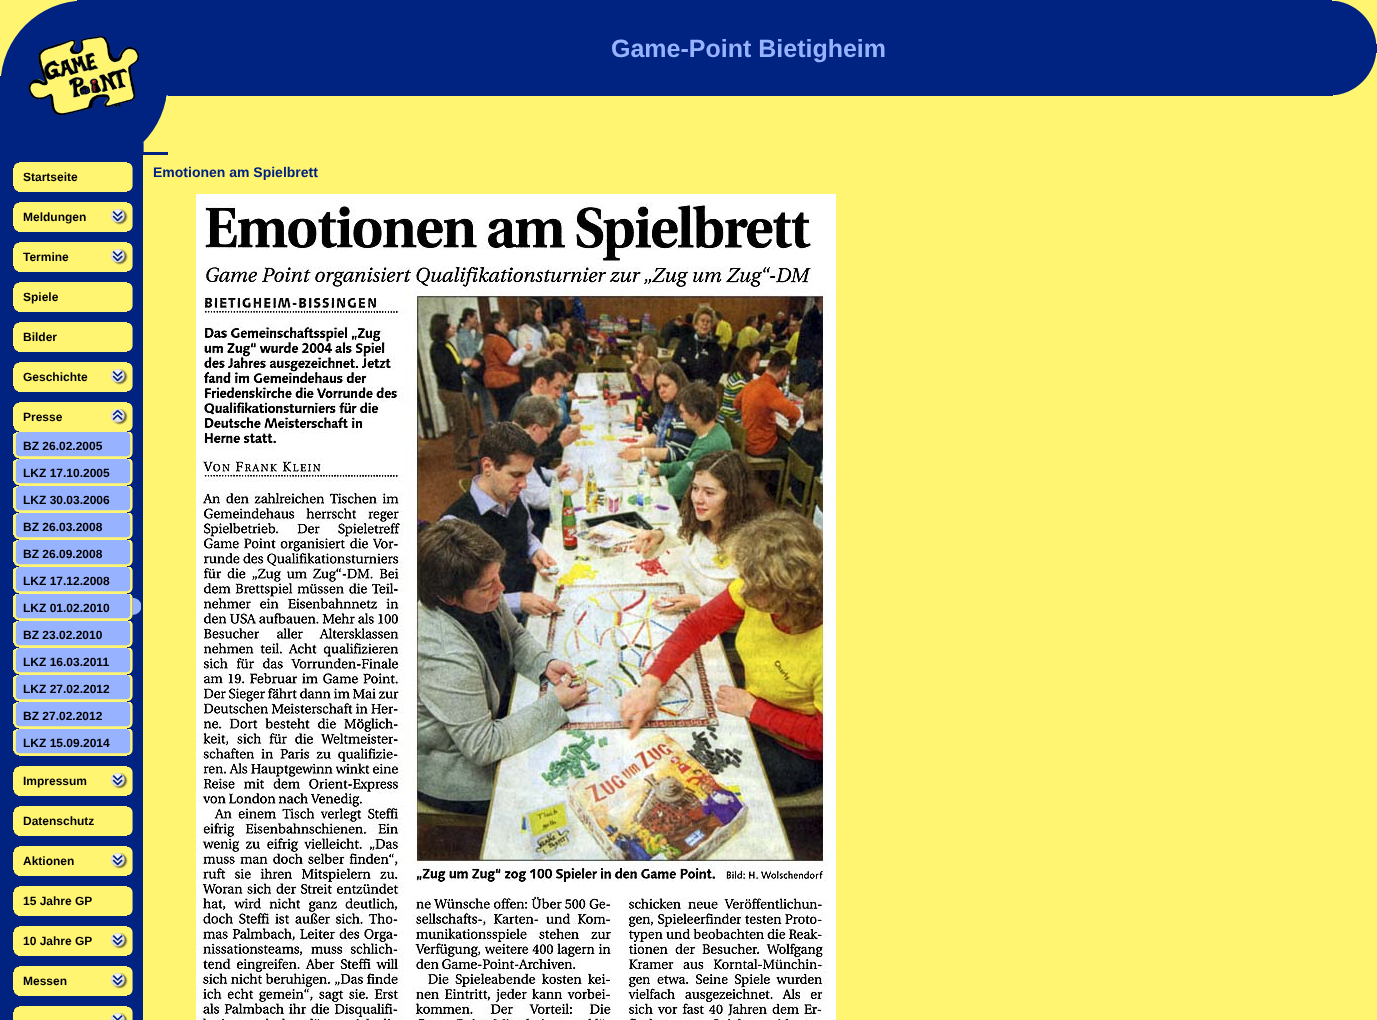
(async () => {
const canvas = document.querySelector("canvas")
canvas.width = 1377
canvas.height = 1020
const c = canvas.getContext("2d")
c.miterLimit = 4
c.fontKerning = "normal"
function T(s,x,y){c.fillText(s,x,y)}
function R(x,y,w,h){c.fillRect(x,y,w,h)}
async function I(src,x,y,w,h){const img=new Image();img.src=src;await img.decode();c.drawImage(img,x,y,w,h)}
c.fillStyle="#fff571"
R(0,0,1377,1020)
c.fillStyle="#002280"
R(0,155,143,865)
await I("1.png",0,0,168,152)
R(0,152,168,3)
R(168,0,1161,96)
c.font="bold 25px Liberation Sans"
c.fillStyle="#97b2ff"
T("Game-Point Bietigheim",611,57)
await I("2.png",1329,0,48,96)
await I("3.png",13,162,120,30)
c.font="bold 12px Liberation Sans"
c.fillStyle="#000"
T("Startseite",23,181)
await I("4.png",13,202,120,30)
T("Meldungen",23,221)
await I("4.png",13,242,120,30)
T("Termine",23,261)
await I("3.png",13,282,120,30)
T("Spiele",23,301)
await I("3.png",13,322,120,30)
T("Bilder",23,341)
await I("4.png",13,362,120,30)
T("Geschichte",23,381)
await I("5.png",13,402,120,30)
T("Presse",23,421)
await I("6.png",13,432,120,27)
T("BZ 26.02.2005",23,450)
await I("6.png",13,459,120,27)
T("LKZ 17.10.2005",23,477)
await I("6.png",13,486,120,27)
T("LKZ 30.03.2006",23,504)
await I("6.png",13,513,120,27)
T("BZ 26.03.2008",23,531)
await I("6.png",13,540,120,27)
T("BZ 26.09.2008",23,558)
await I("6.png",13,567,120,27)
T("LKZ 17.12.2008",23,585)
await I("7.png",13,594,128,27)
T("LKZ 01.02.2010",23,612)
await I("6.png",13,621,120,27)
T("BZ 23.02.2010",23,639)
await I("6.png",13,648,120,27)
T("LKZ 16.03.2011",23,666)
await I("6.png",13,675,120,27)
T("LKZ 27.02.2012",23,693)
await I("6.png",13,702,120,27)
T("BZ 27.02.2012",23,720)
await I("6.png",13,729,120,27)
T("LKZ 15.09.2014",23,747)
await I("4.png",13,766,120,30)
T("Impressum",23,785)
await I("3.png",13,806,120,30)
T("Datenschutz",23,825)
await I("4.png",13,846,120,30)
T("Aktionen",23,865)
await I("3.png",13,886,120,30)
T("15 Jahre GP",23,905)
await I("4.png",13,926,120,30)
T("10 Jahre GP",23,945)
await I("4.png",13,966,120,30)
T("Messen",23,985)
await I("8.png",13,1006,120,14)
c.font="bold 14px Liberation Sans"
c.fillStyle="#002280"
T("Emotionen am Spielbrett",153,177)
await I("9.png",196,194,640,826)
})()
